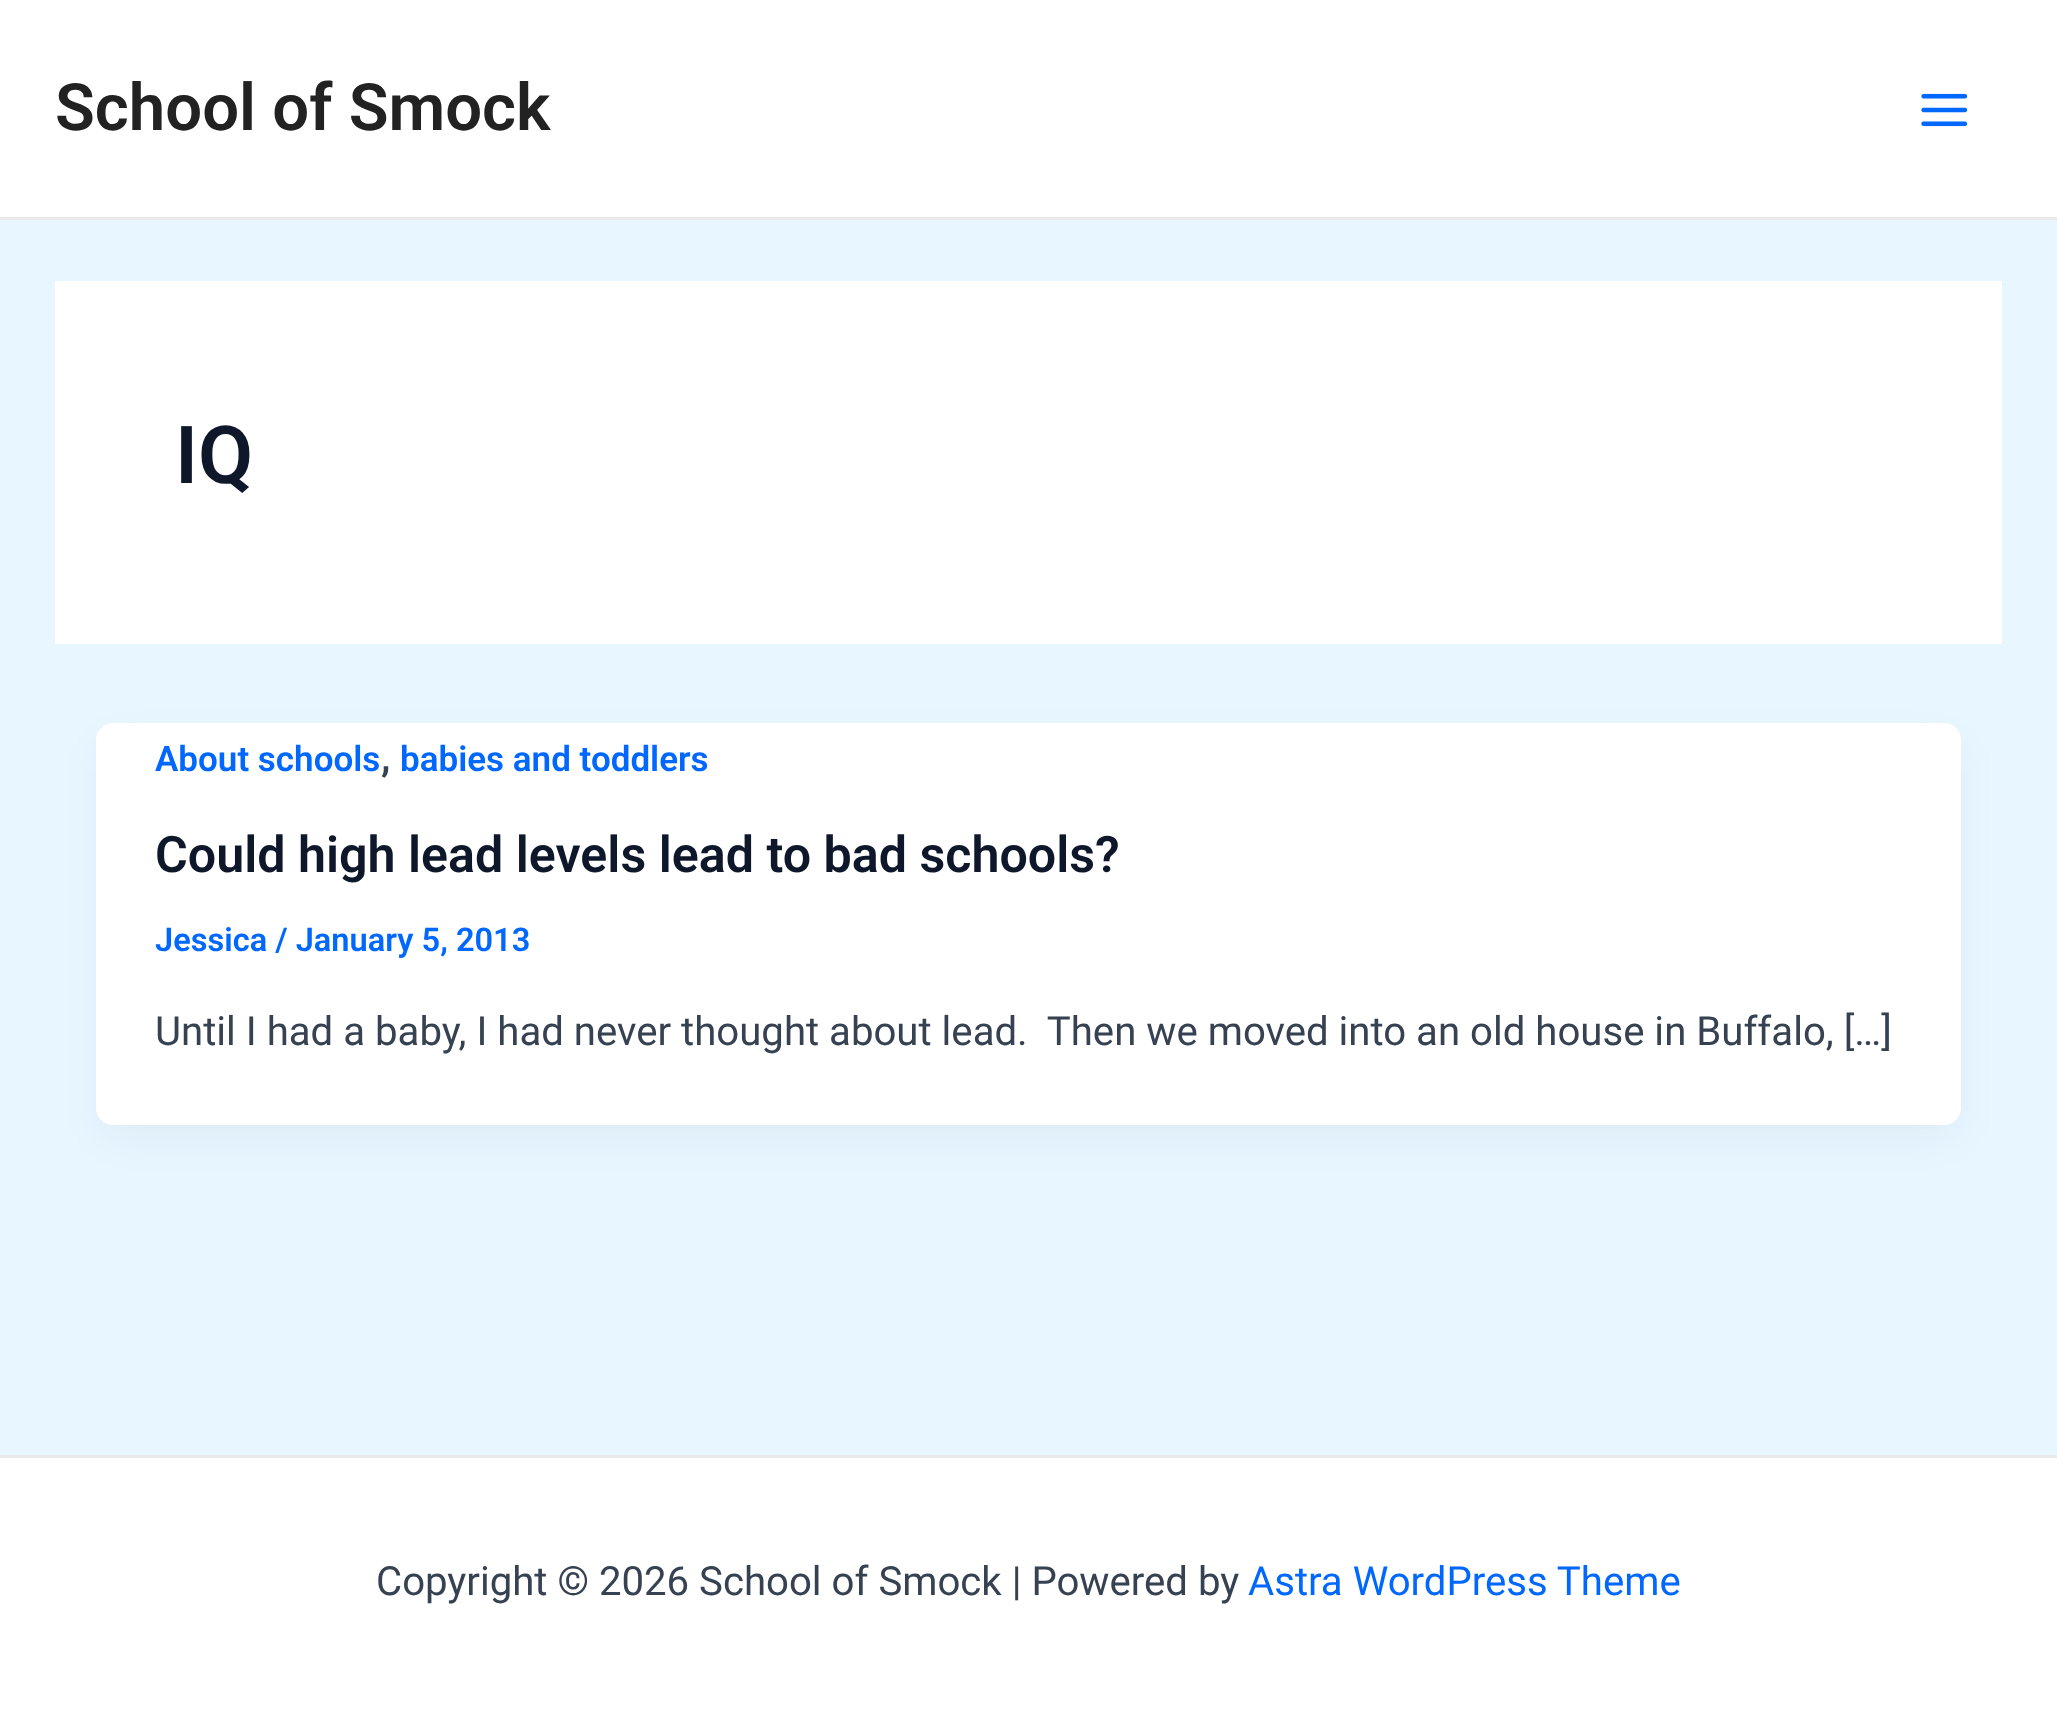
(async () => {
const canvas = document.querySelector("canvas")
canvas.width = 2057
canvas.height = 1731
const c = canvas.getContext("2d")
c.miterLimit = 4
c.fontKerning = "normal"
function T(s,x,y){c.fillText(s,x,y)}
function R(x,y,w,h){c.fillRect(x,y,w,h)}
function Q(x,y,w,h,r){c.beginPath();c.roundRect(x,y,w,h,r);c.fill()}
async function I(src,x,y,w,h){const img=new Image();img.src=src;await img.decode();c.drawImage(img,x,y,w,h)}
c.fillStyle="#e7f6ff"
R(0,0,2057,1731)
c.fillStyle="#fff"
R(0,0,2057,217)
c.fillStyle="#eaeaea"
R(0,217,2057,3)
c.font="600 65.25px Roboto"
c.fillStyle="#222"
T("School of Smock",55,130)
await I("1.png",1921,93,47,34)
c.fillStyle="#fff"
R(55,281,1947,363)
c.font="600 80px Roboto"
c.fillStyle="#0f172a"
T("IQ",175,483)
c.fillStyle="#1018280d"
c.filter="blur(20.5px)"
c.beginPath()
c.roundRect(102,745,1853,391,11)
c.fill()
c.filter="none"
c.fillStyle="#fff"
Q(96,723,1865,402,17)
c.font="600 35px Roboto"
c.fillStyle="#0067ff"
T("About schools",155,771)
c.font="600 40.15px Roboto"
c.fillStyle="#364151"
T(",",381,771)
c.font="600 35px Roboto"
c.fillStyle="#0067ff"
T("babies and toddlers",400,771)
c.font="600 50.2px Roboto"
c.fillStyle="#0f172a"
T("Could high lead levels lead to bad schools?",155,872)
c.font="600 32.6px Roboto"
c.fillStyle="#0067ff"
T("Jessica / January 5, 2013",155,951)
c.font="40.15px Roboto"
c.fillStyle="#364151"
T("Until I had a baby, I had never thought about lead.  Then we moved into an old house in Buffalo, […]",155,1045)
c.fillStyle="#fff"
R(0,1458,2057,273)
c.fillStyle="#eaeaea"
R(0,1455,2057,3)
c.fillStyle="#364151"
T("Copyright © 2026 School of Smock | Powered by",376,1595)
c.fillStyle="#0067ff"
T("Astra WordPress Theme",1248,1595)
})()
